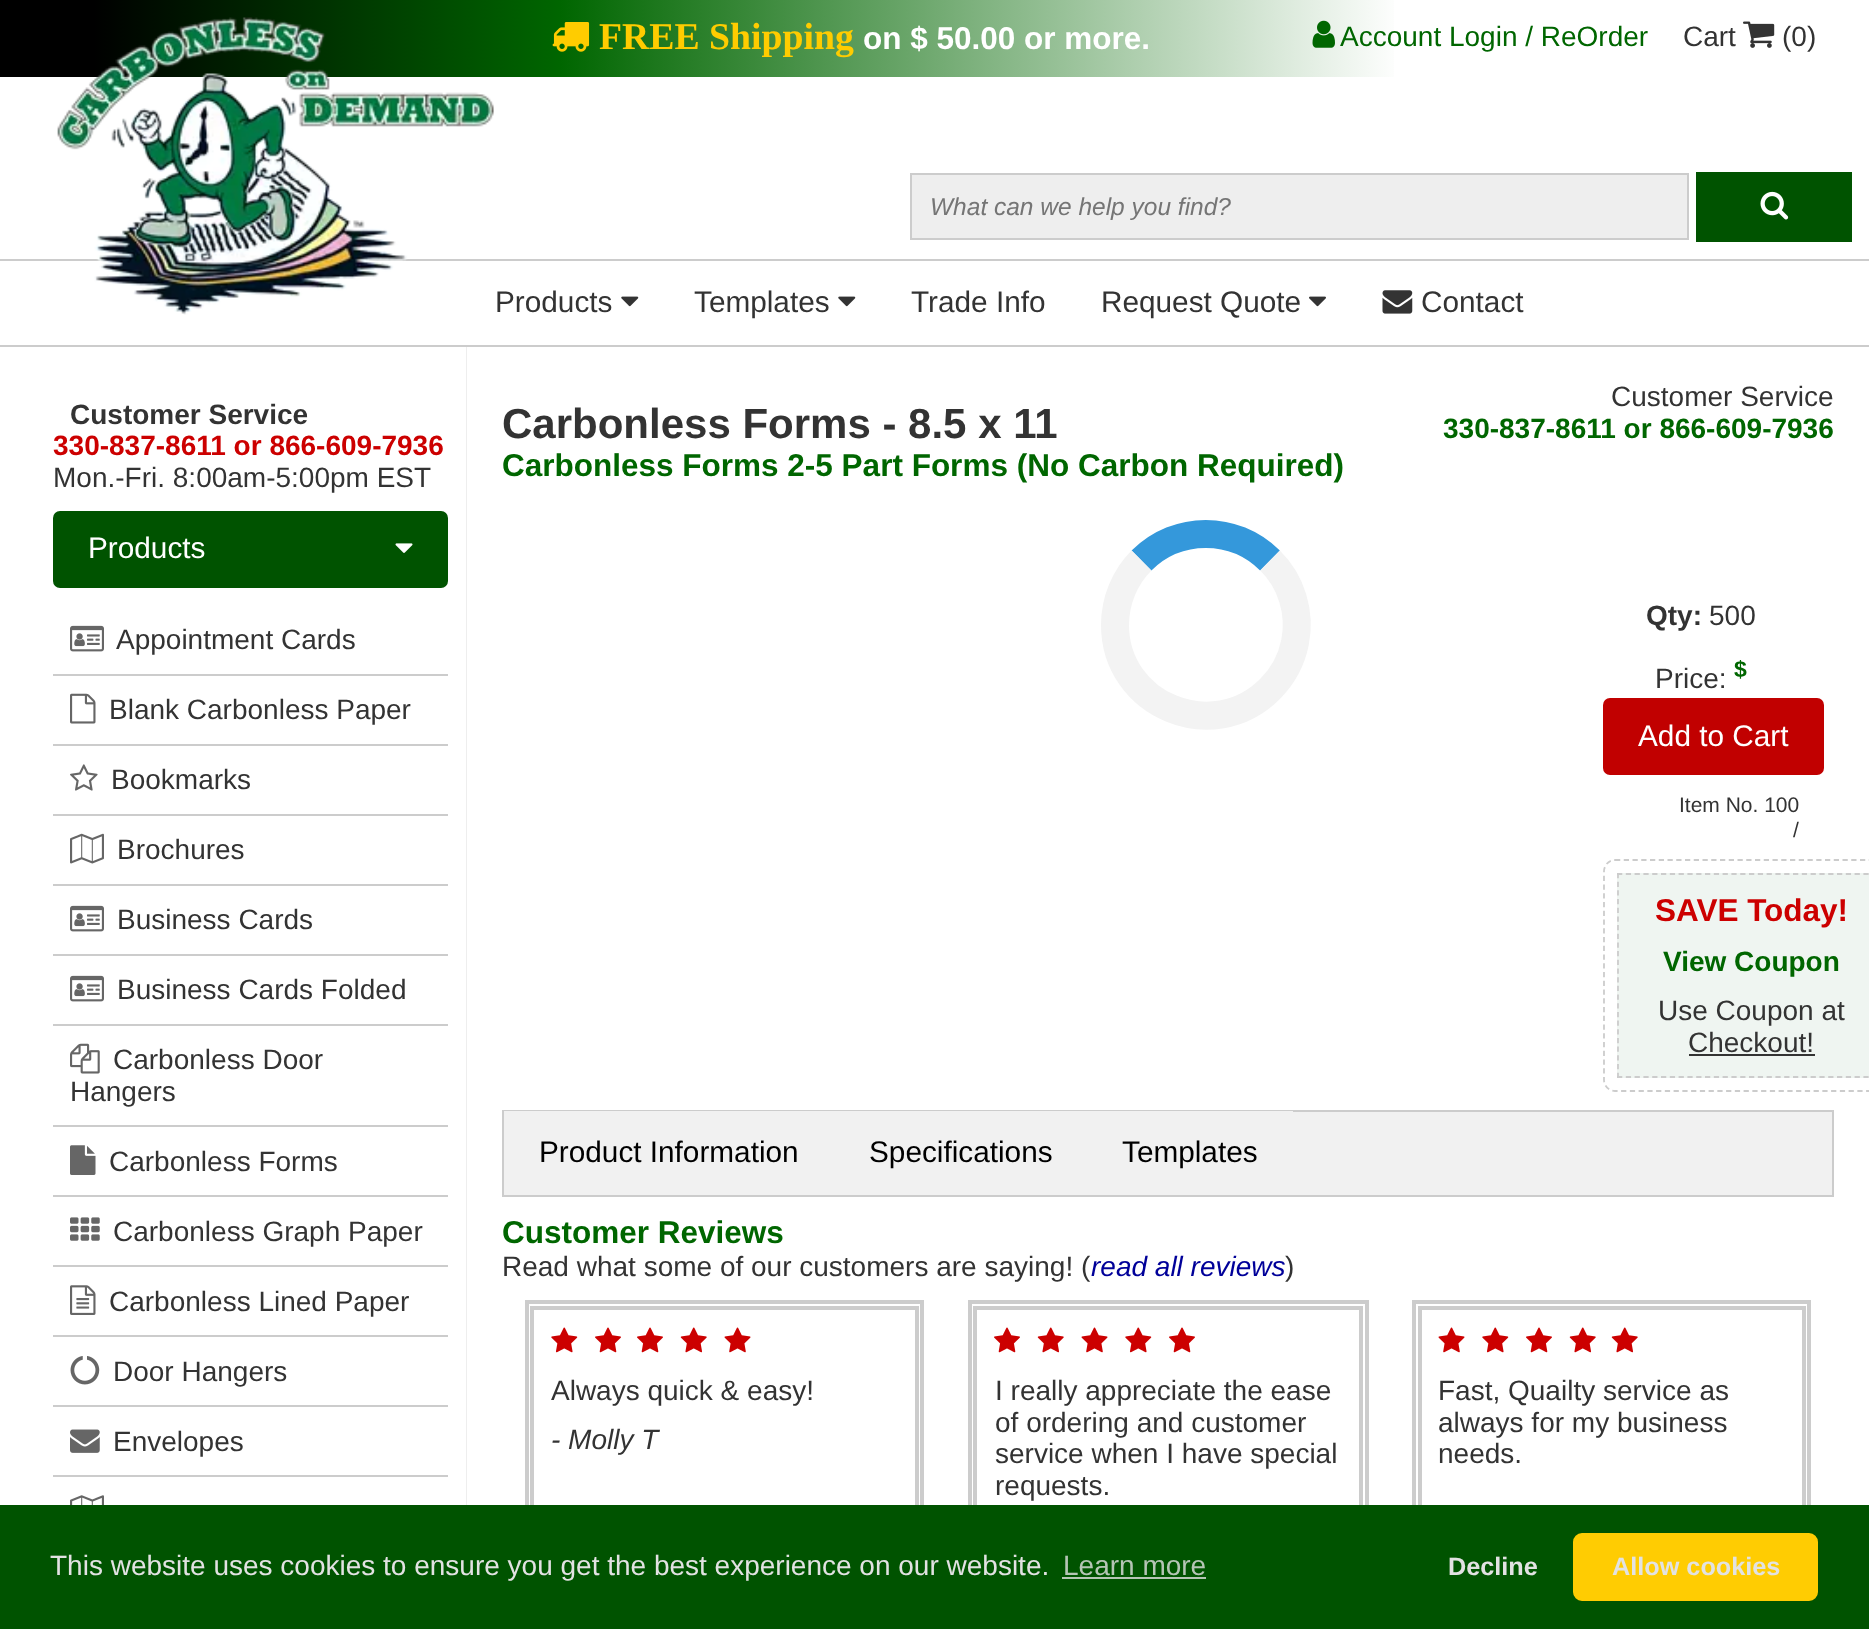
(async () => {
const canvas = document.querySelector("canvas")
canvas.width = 1869
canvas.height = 1629
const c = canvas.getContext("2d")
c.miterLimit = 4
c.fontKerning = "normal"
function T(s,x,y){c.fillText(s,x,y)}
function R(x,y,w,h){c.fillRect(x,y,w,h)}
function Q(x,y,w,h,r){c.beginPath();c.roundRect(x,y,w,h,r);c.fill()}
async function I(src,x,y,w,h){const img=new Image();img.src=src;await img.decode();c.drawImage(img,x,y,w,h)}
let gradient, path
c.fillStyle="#fff"
R(0,0,1869,1629)
gradient = c.createLinearGradient(0,39,1869,38)
gradient.addColorStop(.05,"#000")
gradient.addColorStop(.3,"#060")
gradient.addColorStop(.75,"#fff")
gradient.addColorStop(1,"#fff")
c.fillStyle = gradient
R(0,0,1394,77)
c.fillStyle="#ccc"
R(0,259,1869,2)
await I("1.png",57,17,437,298)
await I("2.png",552,22,38,30)
c.font="bold 37.75px Liberation Serif"
c.fillStyle="#fc0"
T("FREE Shipping",599,49)
c.font="bold 31.5px Liberation Sans"
c.fillStyle="#fff"
T("on $ 50.00 or more.",863,49)
await I("3.png",1312,20,23,28)
c.font="28px Liberation Sans"
c.fillStyle="#060"
T("Account Login / ReOrder",1340,46)
c.fillStyle="#333"
T("Cart",1683,46)
await I("4.png",1743,21,32,27)
T("(0)",1782,46)
c.fillStyle="#eee"
c.beginPath()
c.rect(911,174,777,65)
c.fill()
c.strokeStyle="#ccc"
c.lineWidth=2
c.stroke()
c.font="italic 24.5px Liberation Sans"
c.fillStyle="#757575"
T("What can we help you find?",930,215)
c.fillStyle="#005300"
R(1696,172,156,70)
await I("5.png",1760,191,29,29)
c.fillStyle="#ccc"
R(0,345,1869,2)
c.font="29.75px Liberation Sans"
c.fillStyle="#333"
T("Products",495,312)
await I("6.png",621,296,18,11)
T("Templates",694,312)
await I("6.png",838,296,18,11)
T("Trade Info",911,312)
T("Request Quote",1101,312)
await I("7.png",1309,296,17,11)
await I("8.png",1382,290,31,24)
T("Contact",1421,312)
c.fillStyle="#eee"
R(466,347,1,1158)
c.font="bold 28px Liberation Sans"
c.fillStyle="#333"
T("Customer Service",70,424)
c.fillStyle="#c00"
T("330-837-8611 or 866-609-7936",53,455)
c.font="28px Liberation Sans"
c.fillStyle="#333"
T("Mon.-Fri. 8:00am-5:00pm EST",53,487)
c.fillStyle="#005300"
Q(53,511,395,77,7)
c.font="29.75px Liberation Sans"
c.fillStyle="#fff"
T("Products",88,558)
await I("9.png",395,543,18,10)
c.fillStyle="#ccc"
R(53,674,395,2)
await I("10.png",70,625,34,27)
c.font="28px Liberation Sans"
c.fillStyle="#333"
T("Appointment Cards",116,649)
c.fillStyle="#ccc"
R(53,744,395,2)
await I("11.png",70,693,26,31)
c.fillStyle="#333"
T("Blank Carbonless Paper",109,719)
c.fillStyle="#ccc"
R(53,814,395,2)
await I("12.png",70,764,28,27)
c.fillStyle="#333"
T("Bookmarks",111,789)
c.fillStyle="#ccc"
R(53,884,395,2)
await I("13.png",70,833,34,31)
c.fillStyle="#333"
T("Brochures",117,859)
c.fillStyle="#ccc"
R(53,954,395,2)
await I("10.png",70,905,34,27)
c.fillStyle="#333"
T("Business Cards",117,929)
c.fillStyle="#ccc"
R(53,1024,395,2)
await I("10.png",70,975,34,27)
c.fillStyle="#333"
T("Business Cards Folded",117,999)
c.fillStyle="#ccc"
R(53,1125,395,2)
await I("14.png",70,1043,30,31)
c.fillStyle="#333"
T("Carbonless Door",113,1069)
T("Hangers",70,1101)
c.fillStyle="#ccc"
R(53,1195,395,2)
await I("15.png",70,1145,26,30)
c.fillStyle="#333"
T("Carbonless Forms",109,1171)
c.fillStyle="#ccc"
R(53,1265,395,2)
await I("16.png",70,1217,30,24)
c.fillStyle="#333"
T("Carbonless Graph Paper",113,1241)
c.fillStyle="#ccc"
R(53,1335,395,2)
await I("17.png",70,1285,26,30)
c.fillStyle="#333"
T("Carbonless Lined Paper",109,1311)
c.fillStyle="#ccc"
R(53,1405,395,2)
await I("18.png",70,1356,30,29)
c.fillStyle="#333"
T("Door Hangers",113,1381)
c.fillStyle="#ccc"
R(53,1475,395,2)
await I("19.png",70,1429,30,24)
c.fillStyle="#333"
T("Envelopes",113,1451)
await I("20.png",70,1495,34,10)
c.font="bold 42px Liberation Sans"
T("Carbonless Forms - 8.5 x 11",502,438)
c.font="28px Liberation Sans"
T("Customer Service",1611,406)
c.font="bold 28px Liberation Sans"
c.fillStyle="#060"
T("330-837-8611 or 866-609-7936",1443,438)
c.font="bold 31.5px Liberation Sans"
T("Carbonless Forms 2-5 Part Forms (No Carbon Required)",502,476)
path = new Path2D("M1141.5 560.5c35.5-35.5 93-35.5 128.5 0")
c.strokeStyle="#3498db"
c.lineWidth=28
c.stroke(path)
path = new Path2D("M1270 560.5c21.5 21 31 52.5 25 82c-3.5 17.5-12.5 34-25 46.5c-57 57-155 16.5-155-64c0-24 9.5-47.5 26.5-64.5")
c.strokeStyle="#f3f3f3"
c.stroke(path)
c.font="bold 28px Liberation Sans"
c.fillStyle="#333"
T("Qty:",1646,625)
c.font="28px Liberation Sans"
T("500",1709,625)
T("Price:",1655,688)
c.font="bold 23px Liberation Sans"
c.fillStyle="#060"
T("$",1734,677)
c.fillStyle="#c10000"
Q(1603,698,221,77,7)
c.font="29.75px Liberation Sans"
c.fillStyle="#fff"
T("Add to Cart",1638,746)
c.font="21px Liberation Sans"
c.fillStyle="#333"
T("Item No. 100",1679,812)
T("/",1793,837)
path = new Path2D("M1615 860h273c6.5 0 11.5 5 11.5 11.5v208.5c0 6-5 11-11.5 11h-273c-6 0-11-5-11-11v-208.5c0-6.5 5-11.5 11-11.5z")
c.strokeStyle="#ccc"
c.lineWidth=1.8
c.setLineDash([5.25,3.5])
c.stroke(path)
c.fillStyle="#eff5f1"
R(1617,873,252,205)
path = new Path2D("M1617 874h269.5")
c.setLineDash([5.25,3.55])
c.stroke(path)
path = new Path2D("M1617 1077h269.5")
c.stroke(path)
path = new Path2D("M1618 873v205")
c.setLineDash([5.25,3.43])
c.stroke(path)
c.font="bold 31.5px Liberation Sans"
c.fillStyle="#c00"
T("SAVE Today!",1655,921)
c.font="bold 28px Liberation Sans"
c.fillStyle="#060"
T("View Coupon",1663,971)
c.font="28px Liberation Sans"
c.fillStyle="#333"
T("Use Coupon at",1658,1020)
T("Checkout!",1688,1052)
R(1689,1054,126,2)
c.fillStyle="#f1f1f1"
R(1293,1112,539,83)
c.lineWidth=2
c.setLineDash([])
c.strokeRect(503,1111,1330,85)
R(504,1111,789,84)
c.font="29.75px Liberation Sans"
c.fillStyle="#000"
T("Product Information",539,1162)
T("Specifications",869,1162)
T("Templates",1122,1162)
c.font="bold 31.5px Liberation Sans"
c.fillStyle="#060"
T("Customer Reviews",502,1243)
c.font="28px Liberation Sans"
c.fillStyle="#333"
T("Read what some of our customers are saying! (",502,1276)
c.font="italic 28px Liberation Sans"
c.fillStyle="#009"
T("read all reviews",1091,1276)
c.font="28px Liberation Sans"
c.fillStyle="#333"
T(")",1285,1276)
c.lineWidth=4
c.strokeRect(527,1302,395,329)
c.strokeRect(532,1308,385,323)
await I("21.png",551,1327,27,26)
await I("22.png",595,1327,26,26)
await I("22.png",637,1327,26,26)
await I("23.png",680,1327,27,26)
await I("24.png",724,1327,27,26)
T("Always quick & easy!",551,1400)
c.font="italic 28px Liberation Sans"
T("- Molly T",551,1449)
c.strokeRect(970,1302,397,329)
c.strokeRect(975,1308,386,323)
await I("22.png",994,1327,26,26)
await I("23.png",1037,1327,27,26)
await I("24.png",1081,1327,27,26)
await I("21.png",1125,1327,27,26)
await I("22.png",1169,1327,26,26)
c.font="28px Liberation Sans"
T("I really appreciate the ease",995,1400)
T("of ordering and customer",995,1432)
T("service when I have special",995,1463)
T("requests.",995,1495)
c.strokeRect(1414,1302,395,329)
c.strokeRect(1420,1308,384,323)
await I("24.png",1438,1327,27,26)
await I("21.png",1482,1327,27,26)
await I("22.png",1526,1327,26,26)
await I("23.png",1569,1327,27,26)
await I("23.png",1611,1327,27,26)
T("Fast, Quailty service as",1438,1400)
T("always for my business",1438,1432)
T("needs.",1438,1463)
c.fillStyle="#005300"
R(0,1505,1869,124)
c.fillStyle="#e2e2e2"
T("This website uses cookies to ensure you get the best experience on our website.",50,1575)
c.fillStyle="#b5c5b5"
T("Learn more",1063,1575)
R(1062,1577,144,2)
c.font="bold 25.25px Liberation Sans"
c.fillStyle="#e2e2e2"
T("Decline",1448,1575)
c.fillStyle="#ffcc02"
c.beginPath()
c.roundRect(1575,1535,241,64,7)
c.fill()
c.strokeStyle="#ffcc02"
c.stroke()
c.fillStyle="#e2e2e2"
T("Allow cookies",1612,1575)
})()
